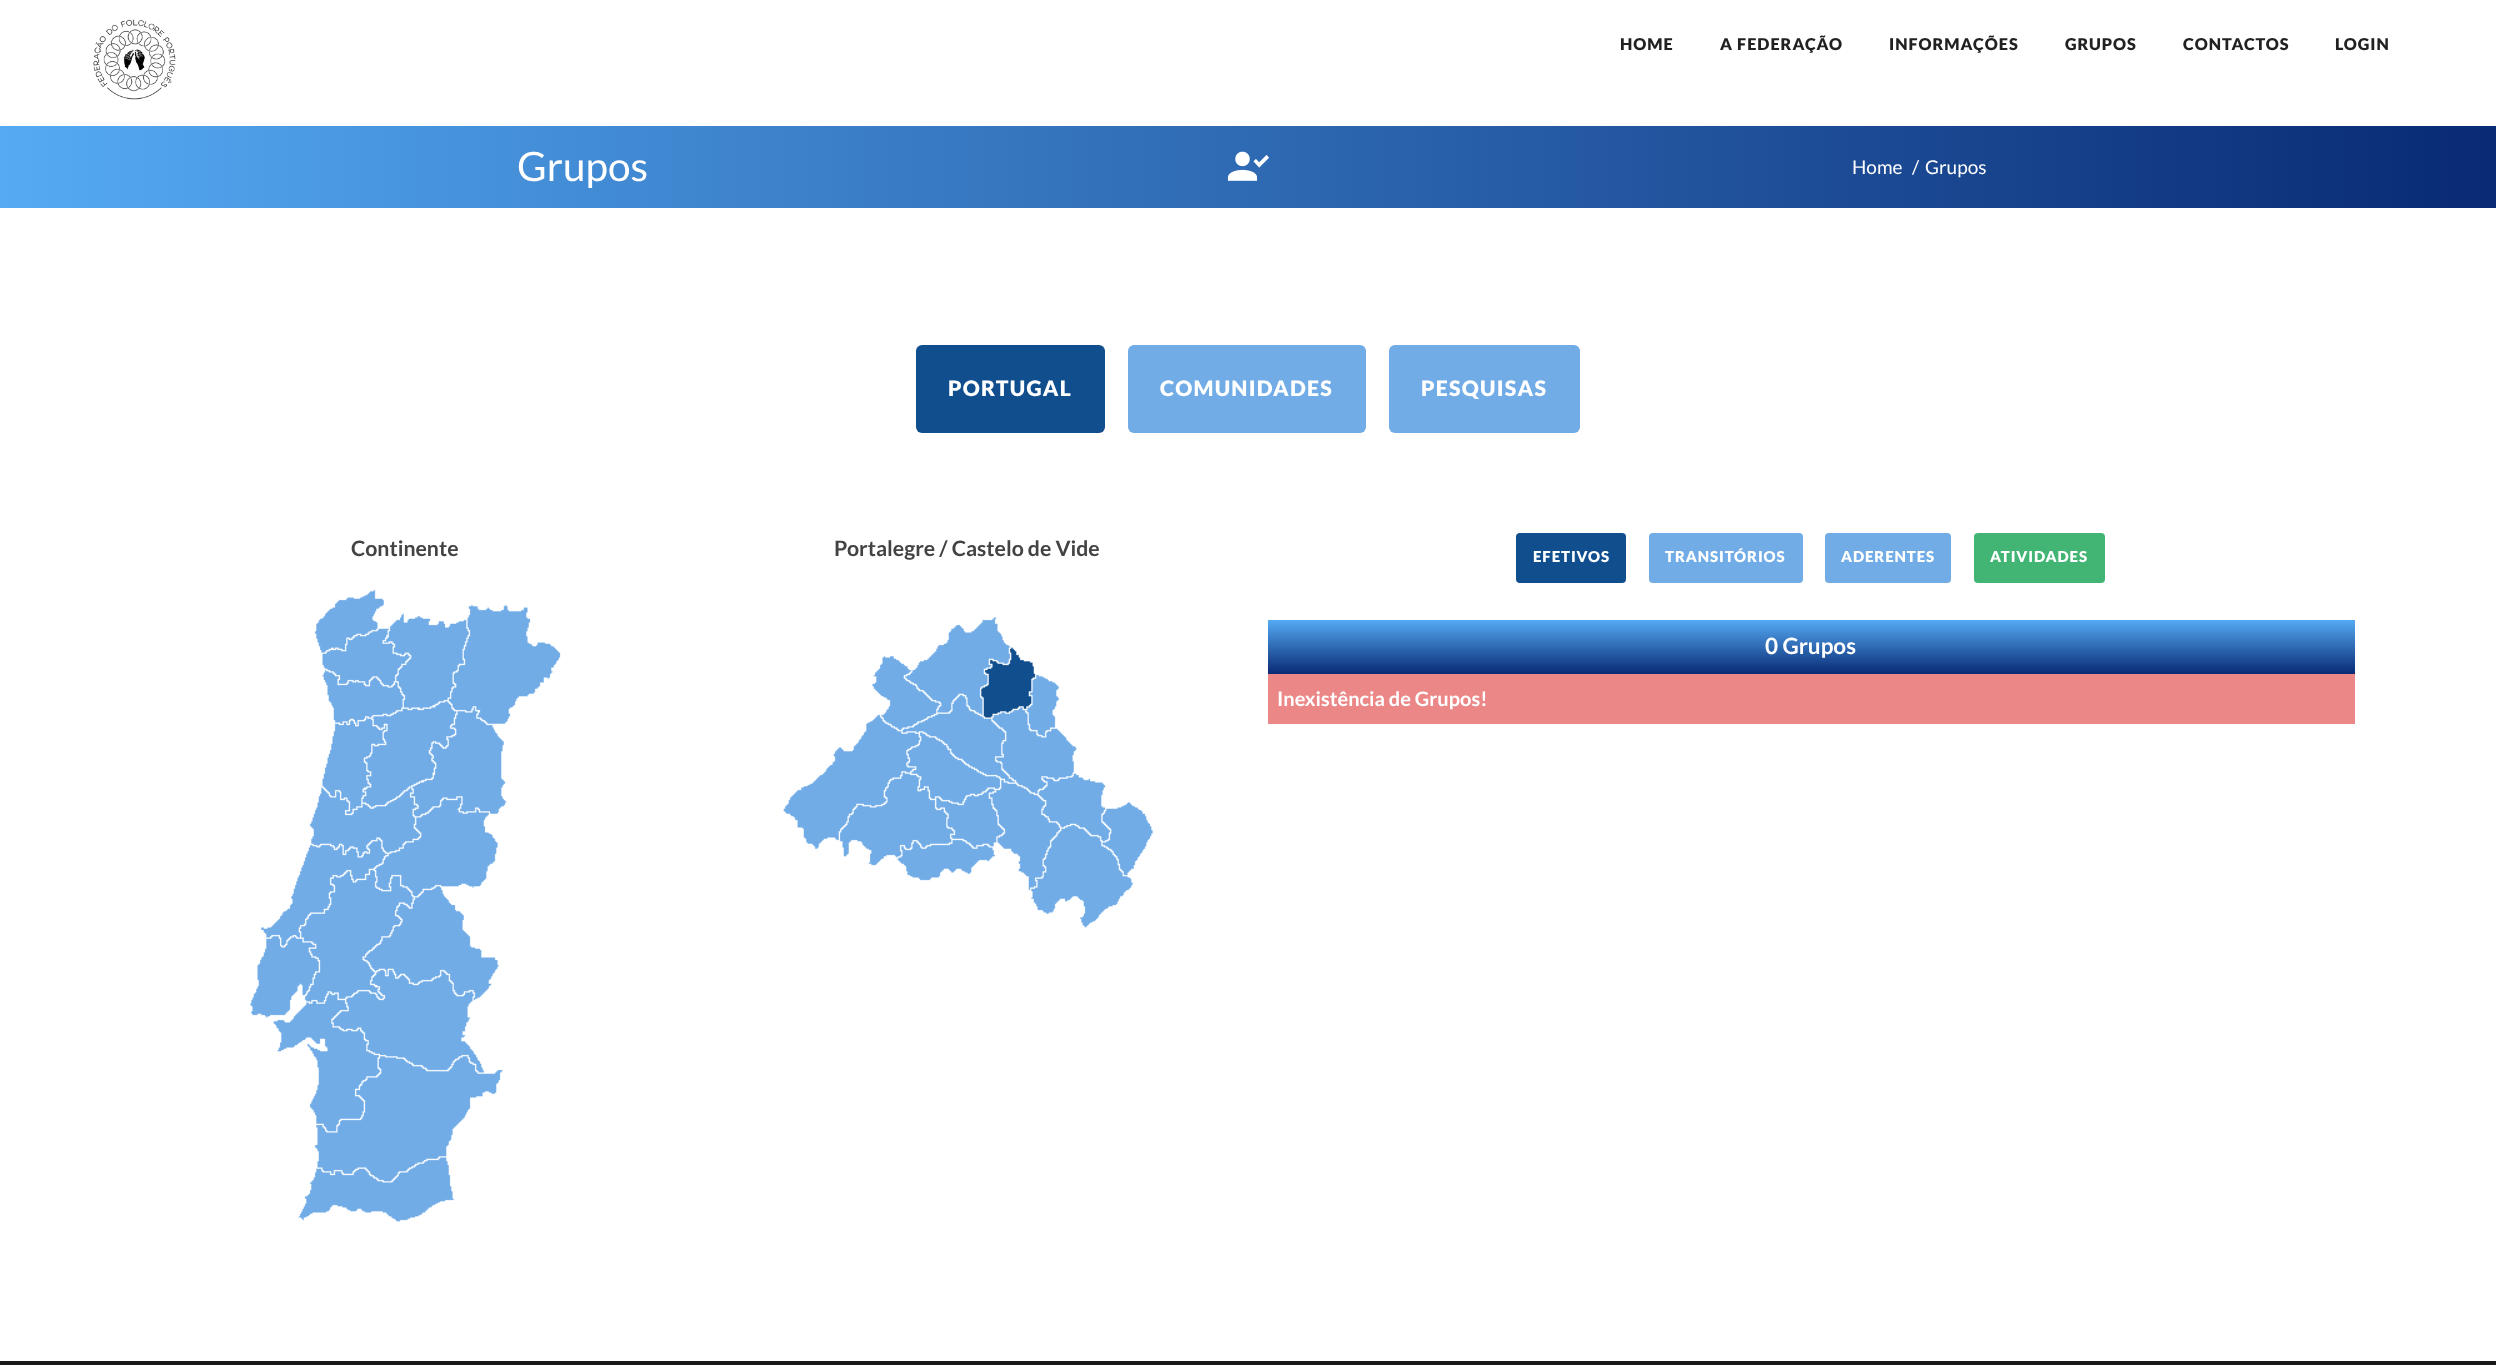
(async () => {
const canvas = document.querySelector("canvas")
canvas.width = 2496
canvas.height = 1365
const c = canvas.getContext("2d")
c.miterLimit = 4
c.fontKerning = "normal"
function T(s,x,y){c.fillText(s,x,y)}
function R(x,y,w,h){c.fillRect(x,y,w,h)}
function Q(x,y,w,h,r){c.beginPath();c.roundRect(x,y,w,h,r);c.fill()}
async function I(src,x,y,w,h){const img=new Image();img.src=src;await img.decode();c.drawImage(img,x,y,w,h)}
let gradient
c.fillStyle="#fff"
R(0,0,2496,1365)
await I("1.png",93,19,83,81)
c.letterSpacing="1px"
c.font="900 16.25px Lato"
c.fillStyle="#212121"
T("HOME",1620,50)
T("A FEDERAÇÃO",1720,50)
T("INFORMAÇÕES",1889,50)
T("GRUPOS",2065,50)
T("CONTACTOS",2183,50)
T("LOGIN",2335,50)
gradient = c.createLinearGradient(2496,167,0,167)
gradient.addColorStop(0,"#092a74")
gradient.addColorStop(1,"#54aaf3")
c.fillStyle = gradient
R(0,126,2496,82)
c.letterSpacing="0px"
c.font="40.5px Lato"
c.fillStyle="#fff"
T("Grupos",517,181)
await I("2.png",1227,151,42,30)
c.font="19px Lato"
T("Home",1852,174)
T("/",1912,174)
T("Grupos",1925,174)
c.fillStyle="#104e8d"
Q(916,345,189,88,6)
c.letterSpacing="1.25px"
c.font="900 21.25px Lato"
c.fillStyle="#fff"
T("PORTUGAL",948,396)
c.fillStyle="#71ace7"
Q(1128,345,238,88,6)
c.fillStyle="#fff"
T("COMUNIDADES",1160,396)
c.fillStyle="#71ace7"
Q(1389,345,191,88,6)
c.fillStyle="#fff"
T("PESQUISAS",1421,396)
c.letterSpacing="0px"
c.font="bold 21.25px Lato"
c.fillStyle="#434345"
T("Continente",351,556)
await I("3.png",249,589,312,633)
T("Portalegre / Castelo de Vide",834,556)
await I("4.png",783,617,370,311)
c.fillStyle="#104e8d"
Q(1516,533,110,50,4)
c.letterSpacing="0.9px"
c.font="900 15px Lato"
c.fillStyle="#fff"
T("EFETIVOS",1533,562)
c.fillStyle="#71ace7"
Q(1649,533,154,50,4)
c.fillStyle="#fff"
T("TRANSITÓRIOS",1665,562)
c.fillStyle="#71ace7"
Q(1825,533,126,50,4)
c.fillStyle="#fff"
T("ADERENTES",1841,562)
c.fillStyle="#42b574"
Q(1974,533,131,50,4)
c.fillStyle="#fff"
T("ATIVIDADES",1990,562)
gradient = c.createLinearGradient(1811,620,1811,674)
gradient.addColorStop(0,"#54aaf3")
gradient.addColorStop(1,"#092a74")
c.fillStyle = gradient
R(1268,620,1087,54)
c.letterSpacing="0px"
c.font="bold 22.5px Lato"
c.fillStyle="#fff"
T("0 Grupos",1765,654)
c.fillStyle="#ec8787"
R(1268,674,1087,50)
c.font="bold 20px Lato"
c.fillStyle="#fff"
T("Inexistência de Grupos!",1277,706)
c.fillStyle="#191919"
R(0,1361,2496,4)
})()
